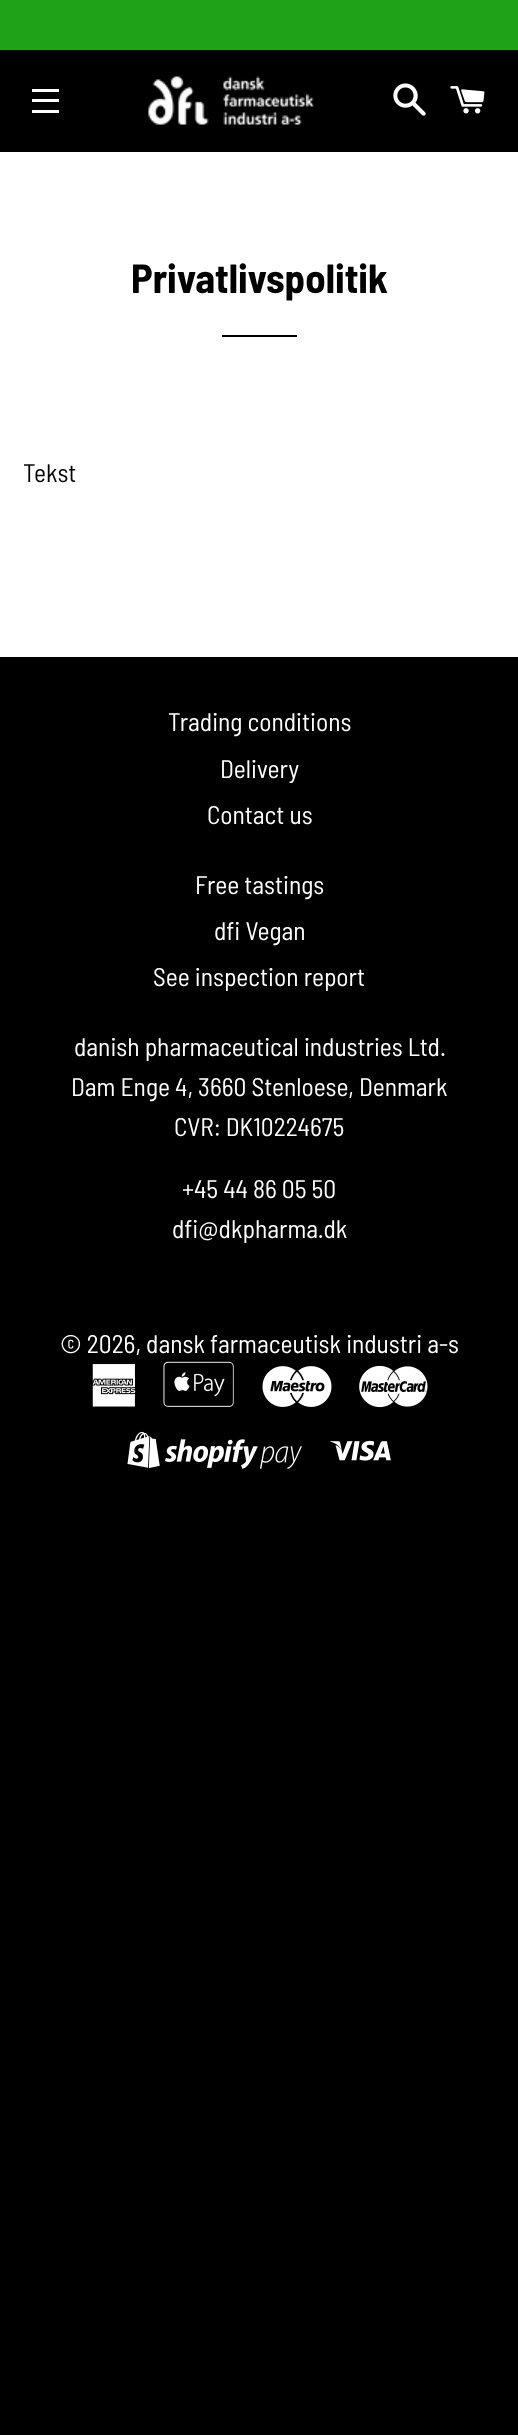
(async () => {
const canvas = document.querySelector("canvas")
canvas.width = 518
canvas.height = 2435
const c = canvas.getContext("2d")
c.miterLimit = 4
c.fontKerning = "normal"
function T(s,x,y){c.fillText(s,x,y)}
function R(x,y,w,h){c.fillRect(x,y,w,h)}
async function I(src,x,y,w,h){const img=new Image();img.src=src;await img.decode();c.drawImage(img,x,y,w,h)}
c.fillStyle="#000"
R(0,0,518,2435)
c.fillStyle="#fff"
R(0,152,518,505)
c.fillStyle="#1fa118"
R(0,0,518,50)
c.fillStyle="#fff"
R(32,89,27,3)
R(32,99,27,3)
R(32,110,27,3)
await I("1.png",148,76,166,49)
await I("2.png",393,83,33,33)
await I("3.png",450,86,35,28)
c.font="bold 40.75px Barlow Semi Condensed"
c.fillStyle="#000"
T("Privatlivspolitik",131,293)
R(222,335,75,2)
c.font="25.5px Barlow Semi Condensed"
T("Tekst",23,482)
c.fillStyle="#fff"
T("Trading conditions",168,731)
T("Delivery",220,778)
T("Contact us",207,824)
T("Free tastings",195,894)
T("dfi Vegan",214,940)
T("See inspection report",153,986)
T("danish pharmaceutical industries Ltd.",74,1056)
T("Dam Enge 4, 3660 Stenloese, Denmark",71,1096)
T("CVR: DK10224675",174,1136)
T("+45 44 86 05 50",182,1198)
T("dfi@dkpharma.dk",172,1238)
T("© 2026, dansk farmaceutisk industri a-s",60,1353)
await I("4.png",92,1364,44,43)
await I("5.png",163,1361,71,46)
await I("6.png",262,1366,70,41)
await I("7.png",359,1365,69,43)
await I("8.png",127,1431,175,38)
await I("9.png",330,1440,61,21)
})()
